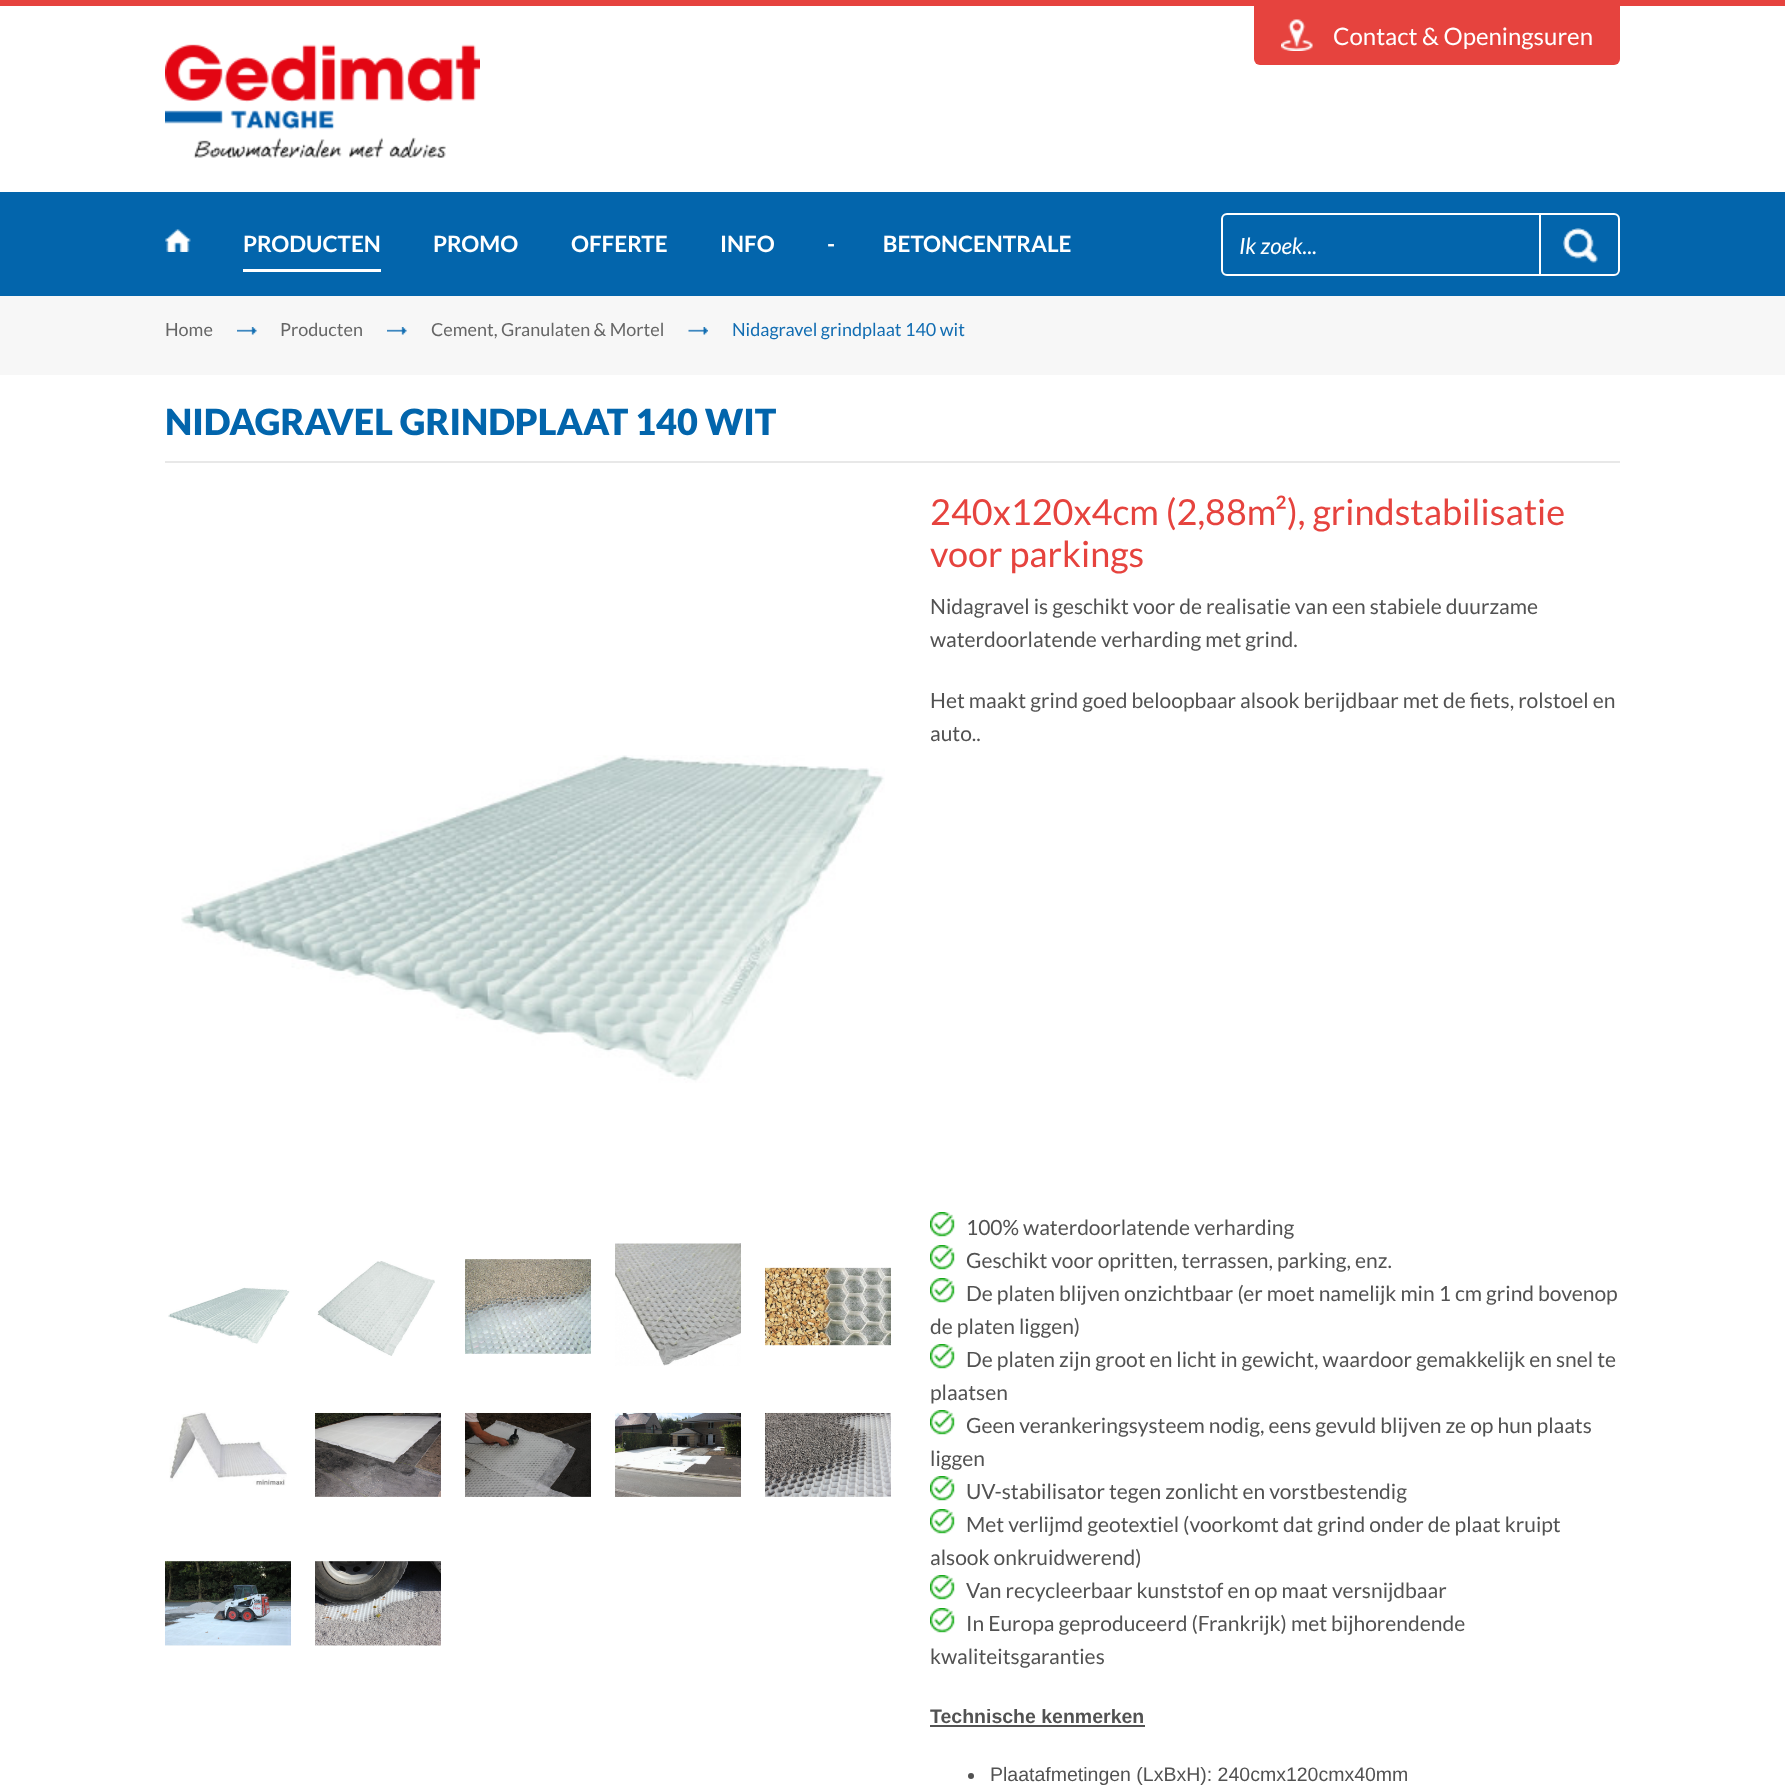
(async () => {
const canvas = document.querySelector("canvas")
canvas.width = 1785
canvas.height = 1785
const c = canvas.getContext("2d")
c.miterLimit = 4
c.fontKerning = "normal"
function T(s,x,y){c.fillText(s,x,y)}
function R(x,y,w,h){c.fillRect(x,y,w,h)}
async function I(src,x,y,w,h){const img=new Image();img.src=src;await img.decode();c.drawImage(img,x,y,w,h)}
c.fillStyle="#fff"
R(0,0,1785,1785)
c.fillStyle="#e6433e"
R(0,0,1785,6)
c.beginPath()
c.roundRect(1254,6,366,59,[0,0,6,6])
c.fill()
await I("1.png",1281,19,32,32)
c.font="24px Lato"
c.fillStyle="#fff"
T("Contact & Openingsuren",1333,45)
await I("2.png",165,44,315,114)
c.fillStyle="#0365ac"
R(0,192,1785,104)
await I("3.png",165,229,26,23)
c.fillStyle="#fff"
R(243,269,138,3)
c.font="bold 22.5px Lato"
T("PRODUCTEN",243,252)
T("PROMO",433,252)
T("OFFERTE",571,252)
T("INFO",720,252)
T("-           BETONCENTRALE",827,252)
c.beginPath()
c.roundRect(1222,214,397,61,5)
c.strokeStyle="#fff"
c.lineWidth=2
c.stroke()
c.font="italic 22.5px Lato"
T("Ik zoek...",1239,254)
await I("4.png",1563,228,35,35)
R(1539,215,2,60)
c.fillStyle="#f7f7f7"
R(0,296,1785,79)
await I("5.png",237,327,20,8)
c.font="18px Lato"
c.fillStyle="#666"
T("Home",165,336)
await I("6.png",387,327,20,8)
T("Producten",280,336)
await I("7.png",688,327,20,8)
T("Cement, Granulaten & Mortel",431,336)
c.fillStyle="#126db2"
T("Nidagravel grindplaat 140 wit",732,336)
c.fillStyle="#e8e8e8"
R(165,461,1455,2)
c.font="900 36px Lato"
c.fillStyle="#0265ac"
T("NIDAGRAVEL GRINDPLAAT 140 WIT",165,435)
await I("8.png",181,755,704,328)
await I("9.png",168,1287,122,57)
await I("10.png",317,1261,118,95)
await I("11.png",465,1259,126,95)
await I("12.png",615,1243,126,123)
await I("13.png",765,1267,126,79)
await I("14.png",169,1412,118,74)
await I("15.png",315,1412,126,85)
await I("16.png",465,1412,126,85)
await I("17.png",615,1412,126,85)
await I("18.png",765,1412,126,85)
await I("19.png",165,1560,126,86)
await I("20.png",315,1561,126,85)
c.font="36px Lato"
c.fillStyle="#e6433e"
T("240x120x4cm (2,88m²), grindstabilisatie",930,525)
T("voor parkings",930,567)
c.font="21px Lato"
c.fillStyle="#525252"
T("Nidagravel is geschikt voor de realisatie van een stabiele duurzame",930,614)
T("waterdoorlatende verharding met grind.",930,647)
T("Het maakt grind goed beloopbaar alsook berijdbaar met de fiets, rolstoel en",930,708)
T("auto..",930,741)
await I("21.png",930,1212,25,25)
T("100% waterdoorlatende verharding",966,1235)
await I("21.png",930,1245,25,25)
T("Geschikt voor opritten, terrassen, parking, enz.",966,1268)
await I("21.png",930,1278,25,25)
T("De platen blijven onzichtbaar (er moet namelijk min 1 cm grind bovenop",966,1301)
T("de platen liggen)",930,1334)
await I("21.png",930,1344,25,25)
T("De platen zijn groot en licht in gewicht, waardoor gemakkelijk en snel te",966,1367)
T("plaatsen",930,1400)
await I("21.png",930,1410,25,25)
T("Geen verankeringsysteem nodig, eens gevuld blijven ze op hun plaats",966,1433)
T("liggen",930,1466)
await I("21.png",930,1476,25,25)
T("UV-stabilisator tegen zonlicht en vorstbestendig",966,1499)
await I("21.png",930,1509,25,25)
T("Met verlijmd geotextiel (voorkomt dat grind onder de plaat kruipt",966,1532)
T("alsook onkruidwerend)",930,1565)
await I("21.png",930,1575,25,25)
T("Van recycleerbaar kunststof en op maat versnijdbaar",966,1598)
await I("21.png",930,1608,25,25)
T("In Europa geproduceerd (Frankrijk) met bijhorendende",966,1631)
T("kwaliteitsgaranties",930,1664)
c.font="bold 19.5px Liberation Sans"
T("Technische kenmerken",930,1723)
R(930,1725,215,2)
c.beginPath()
c.arc(971,1776,3,0,7)
c.fill()
c.font="19.5px Liberation Sans"
T("Plaatafmetingen (LxBxH): 240cmx120cmx40mm",990,1781)
})()
